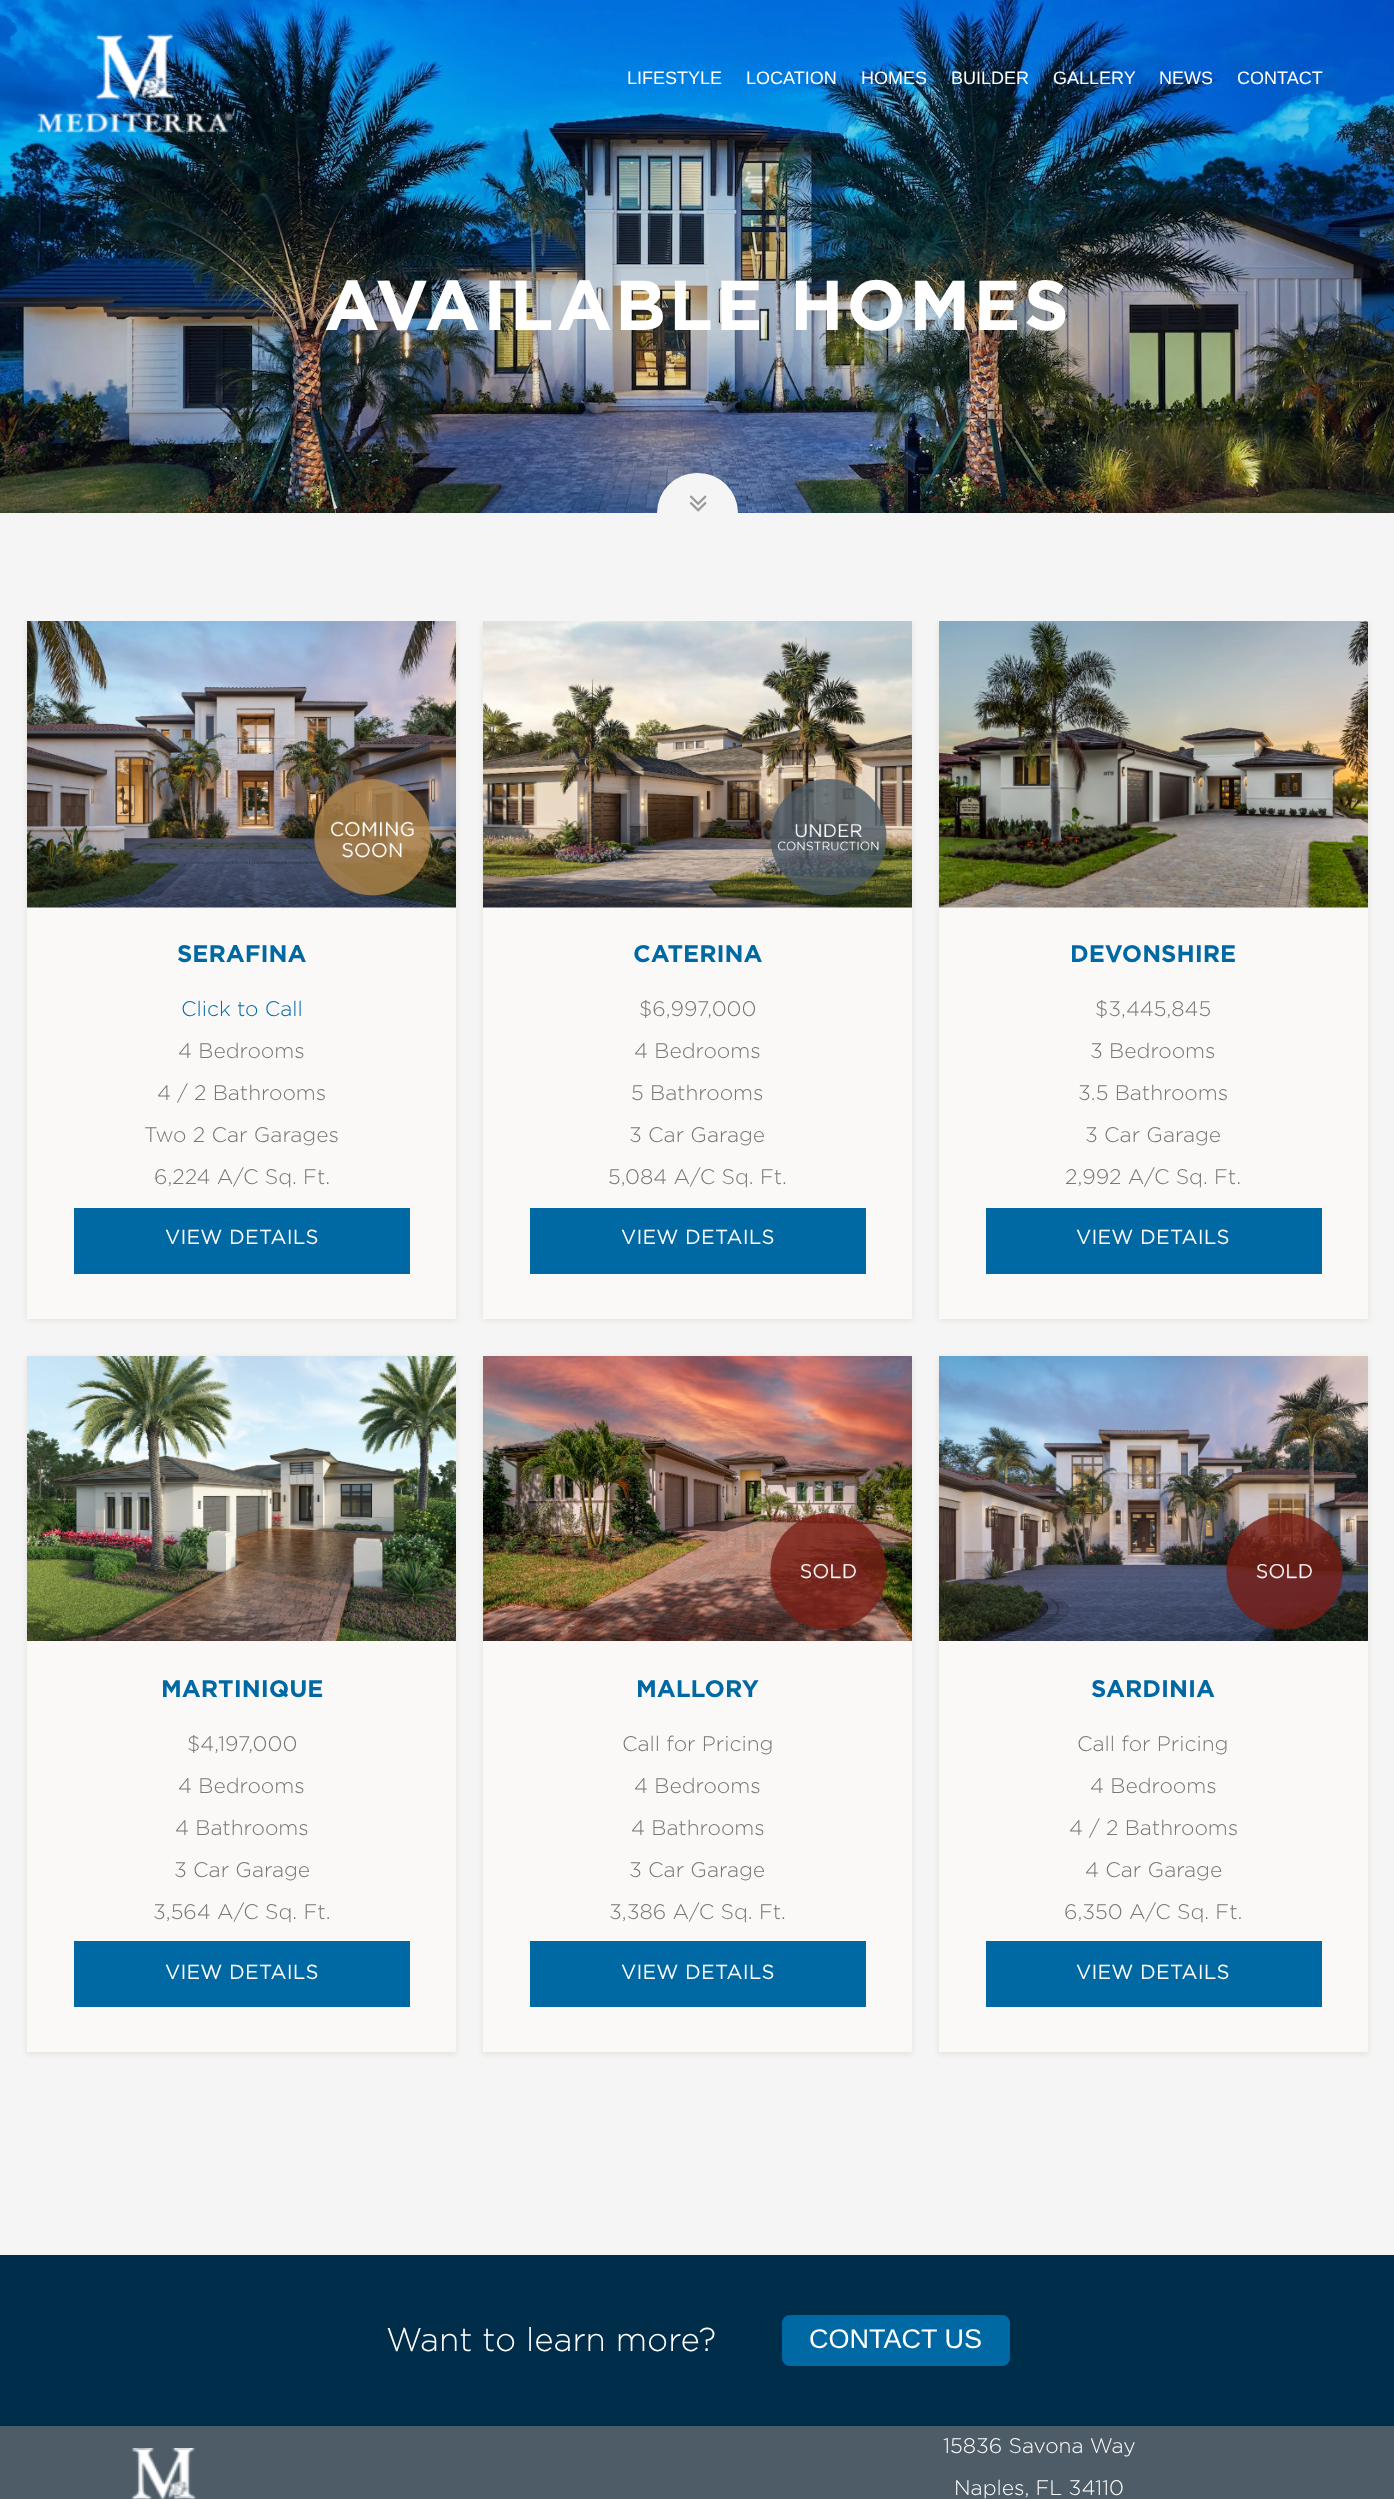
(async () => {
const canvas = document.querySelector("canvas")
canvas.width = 1394
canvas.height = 2499
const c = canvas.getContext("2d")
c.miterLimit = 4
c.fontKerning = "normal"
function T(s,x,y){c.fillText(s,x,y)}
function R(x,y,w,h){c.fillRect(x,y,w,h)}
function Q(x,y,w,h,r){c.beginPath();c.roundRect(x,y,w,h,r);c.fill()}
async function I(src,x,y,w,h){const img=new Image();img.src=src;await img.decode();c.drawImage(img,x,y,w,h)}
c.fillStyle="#f5f5f5"
R(0,0,1394,2499)
await I("2.png",0,0,1394,513)
await I("1.png",37,34,196,99)
c.font="18px Liberation Sans"
c.fillStyle="#fff"
T("LIFESTYLE",627,84)
T("LOCATION",746,84)
T("HOMES",861,84)
T("BUILDER",951,84)
T("GALLERY",1053,84)
T("NEWS",1159,84)
T("CONTACT",1237,84)
c.letterSpacing="3px"
c.font="bold 70.5px Gotham"
T("AVAILABLE HOMES",324,330)
c.fillStyle="#f5f5f5"
c.beginPath()
c.roundRect(657,473,81,40,[40,40,0,0])
c.fill()
await I("3.png",689,495,18,17)
c.save()
c.beginPath()
c.rect(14,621,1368,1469)
c.clip()
c.fillStyle="#b5a68c42"
c.filter="blur(3px)"
c.beginPath()
c.rect(27,623,429,697)
c.fill()
c.filter="none"
c.restore()
c.fillStyle="#faf9f8"
R(27,907,429,412)
await I("4.png",27,621,429,287)
await I("5.png",314,779,117,117)
c.letterSpacing="0px"
c.font="bold 24px Gotham"
c.fillStyle="#0069a4"
T("SERAFINA",177,962)
c.font="300 21px Gotham"
T("Click to Call",181,1016)
c.fillStyle="#777"
T("4 Bedrooms",178,1058)
T("4 / 2 Bathrooms",157,1100)
T("Two 2 Car Garages",144,1142)
T("6,224 A/C Sq. Ft.",154,1184)
c.fillStyle="#0069a4"
R(74,1208,336,66)
c.letterSpacing="0.75px"
c.font="bold 19.5px 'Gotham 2'"
c.fillStyle="#fff"
T("VIEW DETAILS",165,1244)
c.save()
c.beginPath()
c.rect(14,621,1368,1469)
c.clip()
c.fillStyle="#b5a68c42"
c.filter="blur(3px)"
c.beginPath()
c.rect(483,623,429,697)
c.fill()
c.filter="none"
c.restore()
c.fillStyle="#faf9f8"
R(483,907,429,412)
await I("6.png",483,621,429,287)
await I("7.png",770,779,117,116)
c.letterSpacing="0px"
c.font="bold 24px Gotham"
c.fillStyle="#0069a4"
T("CATERINA",633,962)
c.font="300 21px Gotham"
c.fillStyle="#777"
T("$6,997,000",639,1016)
T("4 Bedrooms",634,1058)
T("5 Bathrooms",631,1100)
T("3 Car Garage",629,1142)
T("5,084 A/C Sq. Ft.",608,1184)
c.fillStyle="#0069a4"
R(530,1208,336,66)
c.letterSpacing="0.75px"
c.font="bold 19.5px 'Gotham 2'"
c.fillStyle="#fff"
T("VIEW DETAILS",621,1244)
c.save()
c.beginPath()
c.rect(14,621,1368,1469)
c.clip()
c.fillStyle="#b5a68c42"
c.filter="blur(3px)"
c.beginPath()
c.rect(939,623,429,697)
c.fill()
c.filter="none"
c.restore()
c.fillStyle="#faf9f8"
R(939,907,429,412)
await I("8.png",939,621,429,287)
c.letterSpacing="0px"
c.font="bold 24px Gotham"
c.fillStyle="#0069a4"
T("DEVONSHIRE",1070,962)
c.font="300 21px Gotham"
c.fillStyle="#777"
T("$3,445,845",1095,1016)
T("3 Bedrooms",1090,1058)
T("3.5 Bathrooms",1078,1100)
T("3 Car Garage",1085,1142)
T("2,992 A/C Sq. Ft.",1065,1184)
c.fillStyle="#0069a4"
R(986,1208,336,66)
c.letterSpacing="0.75px"
c.font="bold 19.5px 'Gotham 2'"
c.fillStyle="#fff"
T("VIEW DETAILS",1076,1244)
c.fillStyle="#b5a68c42"
c.filter="blur(3px)"
c.beginPath()
c.rect(27,1358,429,696)
c.fill()
c.filter="none"
c.fillStyle="#faf9f8"
R(27,1641,429,411)
await I("9.png",27,1356,429,285)
c.letterSpacing="0px"
c.font="bold 24px Gotham"
c.fillStyle="#0069a4"
T("MARTINIQUE",161,1697)
c.font="300 21px Gotham"
c.fillStyle="#777"
T("$4,197,000",187,1751)
T("4 Bedrooms",178,1793)
T("4 Bathrooms",175,1835)
T("3 Car Garage",174,1877)
T("3,564 A/C Sq. Ft.",153,1919)
c.fillStyle="#0069a4"
R(74,1941,336,66)
c.letterSpacing="0.75px"
c.font="bold 19.5px 'Gotham 2'"
c.fillStyle="#fff"
T("VIEW DETAILS",165,1979)
c.fillStyle="#b5a68c42"
c.filter="blur(3px)"
c.beginPath()
c.rect(483,1358,429,696)
c.fill()
c.filter="none"
c.fillStyle="#faf9f8"
R(483,1641,429,411)
await I("10.png",483,1356,429,285)
await I("11.png",770,1513,117,117)
c.letterSpacing="0px"
c.font="bold 24px Gotham"
c.fillStyle="#0069a4"
T("MALLORY",636,1697)
c.font="300 21px Gotham"
c.fillStyle="#777"
T("Call for Pricing",622,1751)
T("4 Bedrooms",634,1793)
T("4 Bathrooms",631,1835)
T("3 Car Garage",629,1877)
T("3,386 A/C Sq. Ft.",609,1919)
c.fillStyle="#0069a4"
R(530,1941,336,66)
c.letterSpacing="0.75px"
c.font="bold 19.5px 'Gotham 2'"
c.fillStyle="#fff"
T("VIEW DETAILS",621,1979)
c.fillStyle="#b5a68c42"
c.filter="blur(3px)"
c.beginPath()
c.rect(939,1358,429,696)
c.fill()
c.filter="none"
c.fillStyle="#faf9f8"
R(939,1641,429,411)
await I("12.png",939,1356,429,285)
await I("13.png",1226,1513,117,117)
c.letterSpacing="0px"
c.font="bold 24px Gotham"
c.fillStyle="#0069a4"
T("SARDINIA",1091,1697)
c.font="300 21px Gotham"
c.fillStyle="#777"
T("Call for Pricing",1077,1751)
T("4 Bedrooms",1090,1793)
T("4 / 2 Bathrooms",1069,1835)
T("4 Car Garage",1085,1877)
T("6,350 A/C Sq. Ft.",1064,1919)
c.fillStyle="#0069a4"
R(986,1941,336,66)
c.letterSpacing="0.75px"
c.font="bold 19.5px 'Gotham 2'"
c.fillStyle="#fff"
T("VIEW DETAILS",1076,1979)
c.fillStyle="#002d49"
R(0,2255,1394,171)
c.letterSpacing="0px"
c.font="300 33px Gotham"
c.fillStyle="#fff"
T("Want to learn more?",386,2351)
c.fillStyle="#0069a4"
Q(782,2315,228,51,8)
c.font="27px Liberation Sans"
c.fillStyle="#fff"
T("CONTACT US",809,2348)
c.fillStyle="#4d5c67"
R(0,2426,1394,73)
await I("14.png",131,2448,66,51)
c.font="300 21px Gotham"
c.fillStyle="#fff"
T("15836 Savona Way",943,2453)
T("Naples, FL 34110",954,2495)
})()
